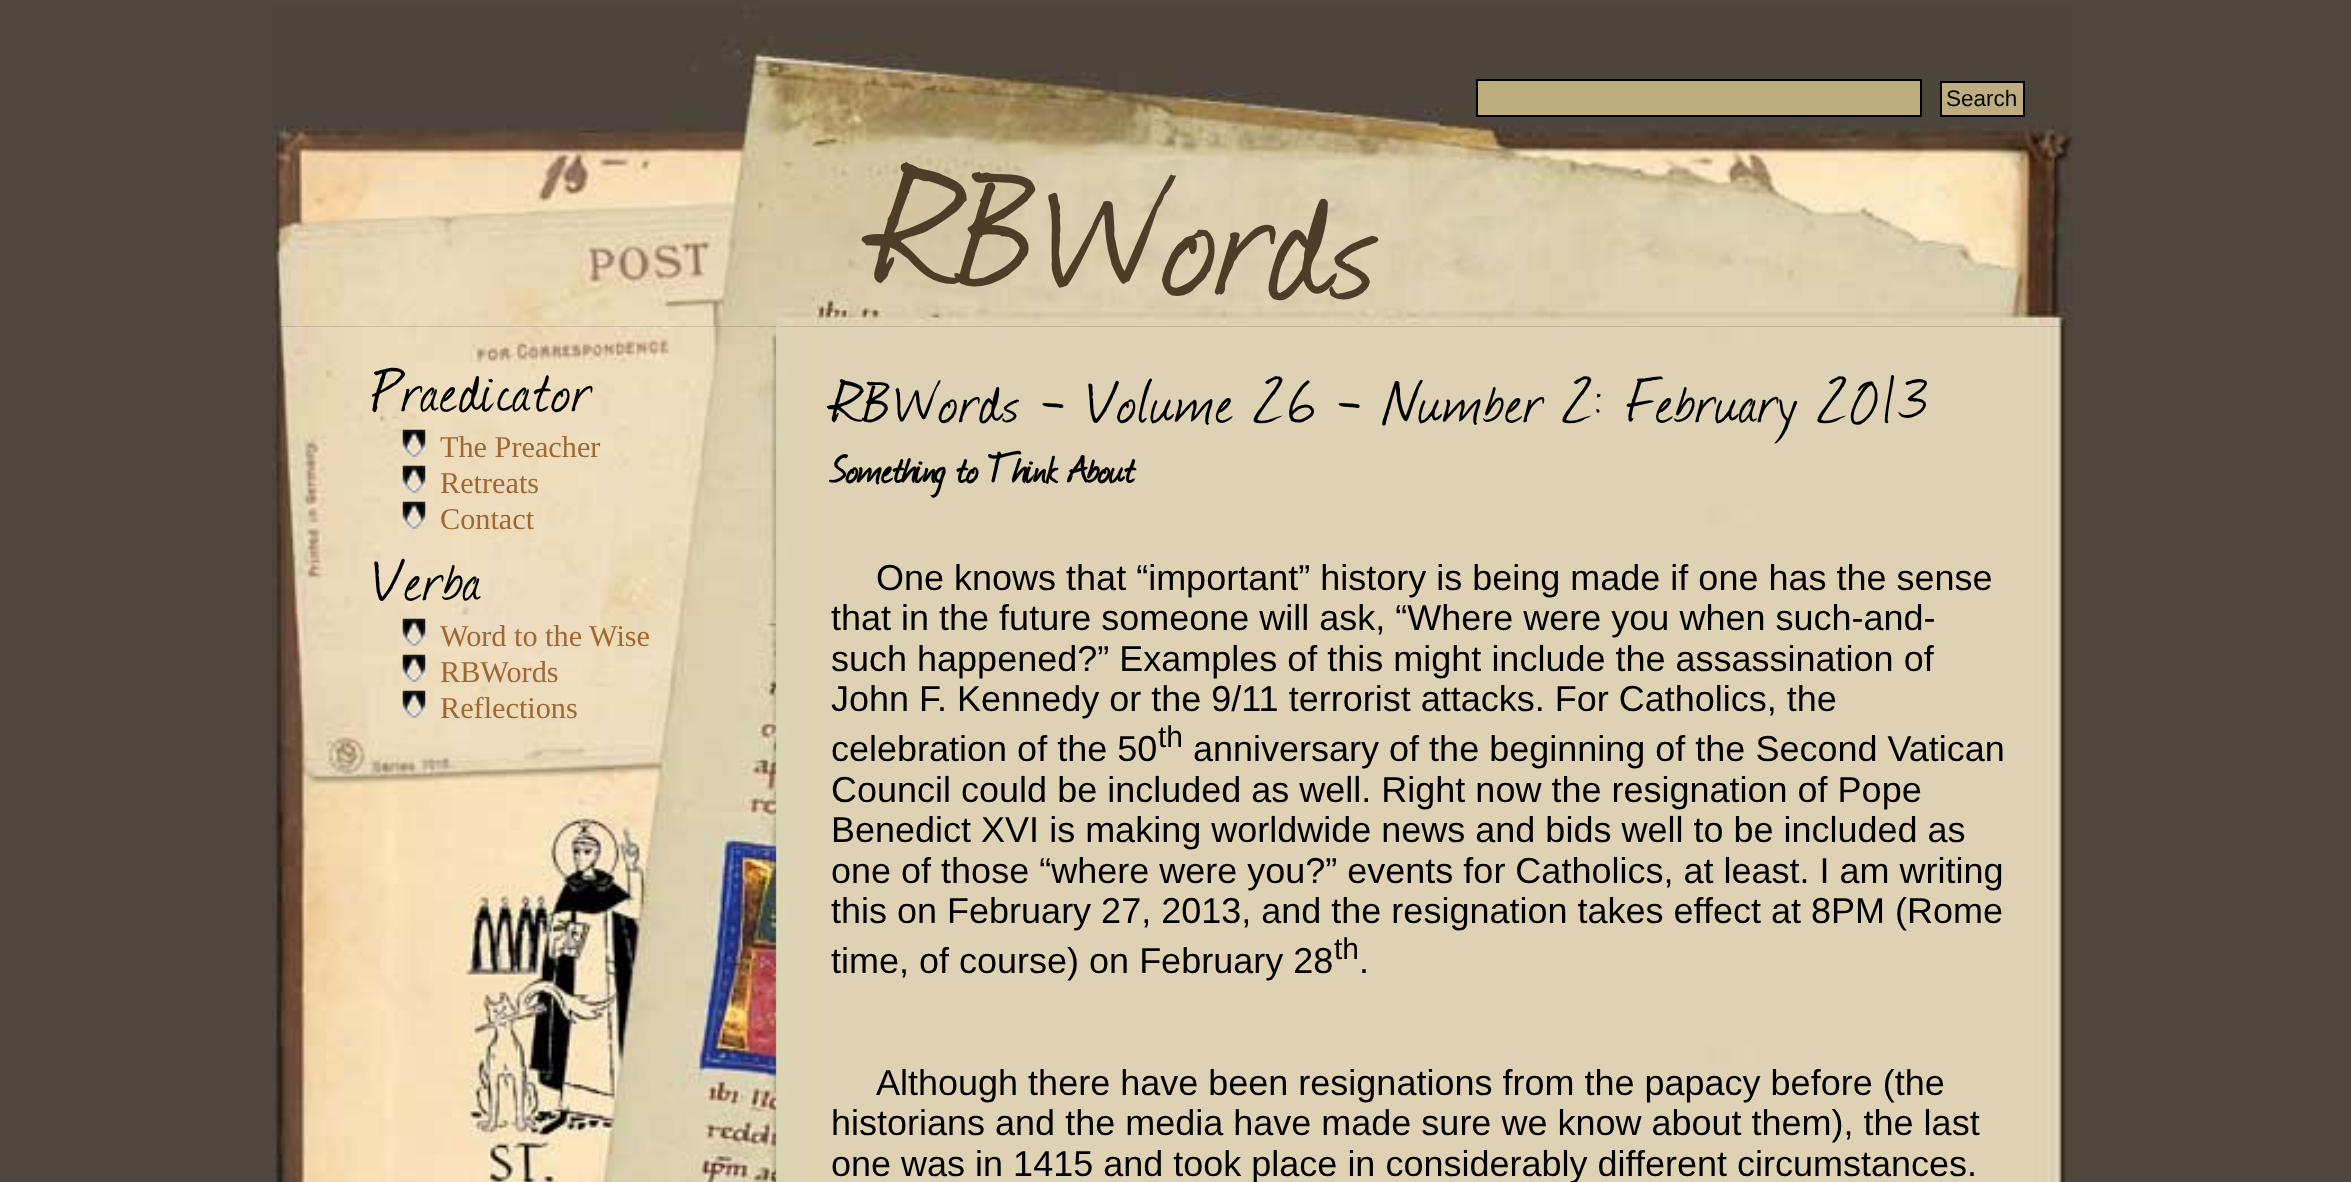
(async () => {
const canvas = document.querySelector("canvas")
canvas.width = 2351
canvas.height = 1182
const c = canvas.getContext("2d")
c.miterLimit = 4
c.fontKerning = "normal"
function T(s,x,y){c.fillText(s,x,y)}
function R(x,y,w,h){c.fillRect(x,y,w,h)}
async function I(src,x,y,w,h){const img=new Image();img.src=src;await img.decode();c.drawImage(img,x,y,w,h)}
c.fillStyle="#4e453c"
R(0,0,2351,1182)
await I("1.png",272,5,1801,322)
c.fillStyle="#bead7f"
c.beginPath()
c.rect(1477,80,444,36)
c.fill()
c.strokeStyle="#000"
c.lineWidth=2
c.stroke()
c.beginPath()
c.rect(1941,82,83,34)
c.fill()
c.stroke()
c.font="22.5px Liberation Sans"
c.fillStyle="#000"
T("Search",1946,106)
c.letterSpacing="2.25px"
c.font="202.5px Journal"
c.fillStyle="#4c3d28"
c.save()
c.translate(872,279)
c.rotate(2 * Math.PI / 180)
c.fillText("RBWords",0,0)
c.restore()
await I("2.png",272,326,507,856)
c.font="72px Journal"
c.fillStyle="#000"
T("Praedicator",372,410)
await I("3.png",402,429,24,28)
c.letterSpacing="0px"
c.font="30.25px Liberation Serif"
c.fillStyle="#a06830"
T("The Preacher",440,457)
await I("4.png",402,465,24,28)
T("Retreats",440,493)
await I("5.png",402,501,24,28)
T("Contact",440,529)
c.letterSpacing="2.25px"
c.font="72px Journal"
c.fillStyle="#000"
T("Verba",372,599)
await I("6.png",402,618,24,28)
c.letterSpacing="0px"
c.font="30.25px Liberation Serif"
c.fillStyle="#a06830"
T("Word to the Wise",440,646)
await I("7.png",402,654,24,28)
T("RBWords",440,682)
await I("8.png",402,690,24,28)
T("Reflections",440,718)
await I("9.png",776,326,1290,856)
c.letterSpacing="2.25px"
c.font="72px Journal"
c.fillStyle="#000"
T("RBWords - Volume 26 - Number 2: February 2013",831,421)
c.letterSpacing="0px"
c.font="bold 45px Journal"
T("Something to Think About",831,482)
c.font="36px Liberation Sans"
T("One knows that “important” history is being made if one has the sense",876,590)
T("that in the future someone will ask, “Where were you when such-and-",831,630)
T("such happened?” Examples of this might include the assassination of",831,671)
T("John F. Kennedy or the 9/11 terrorist attacks. For Catholics, the",831,711)
T("celebration of the 50",831,761)
c.font="30px Liberation Sans"
T("th",1158,747)
c.font="36px Liberation Sans"
T("anniversary of the beginning of the Second Vatican",1193,761)
T("Council could be included as well. Right now the resignation of Pope",831,802)
T("Benedict XVI is making worldwide news and bids well to be included as",831,842)
T("one of those “where were you?” events for Catholics, at least. I am writing",831,883)
T("this on February 27, 2013, and the resignation takes effect at 8PM (Rome",831,923)
T("time, of course) on February 28",831,973)
c.font="30px Liberation Sans"
T("th",1334,959)
c.font="36px Liberation Sans"
T(".",1359,973)
T("Although there have been resignations from the papacy before (the",876,1095)
T("historians and the media have made sure we know about them), the last",831,1135)
T("one was in 1415 and took place in considerably different circumstances.",831,1176)
})()
